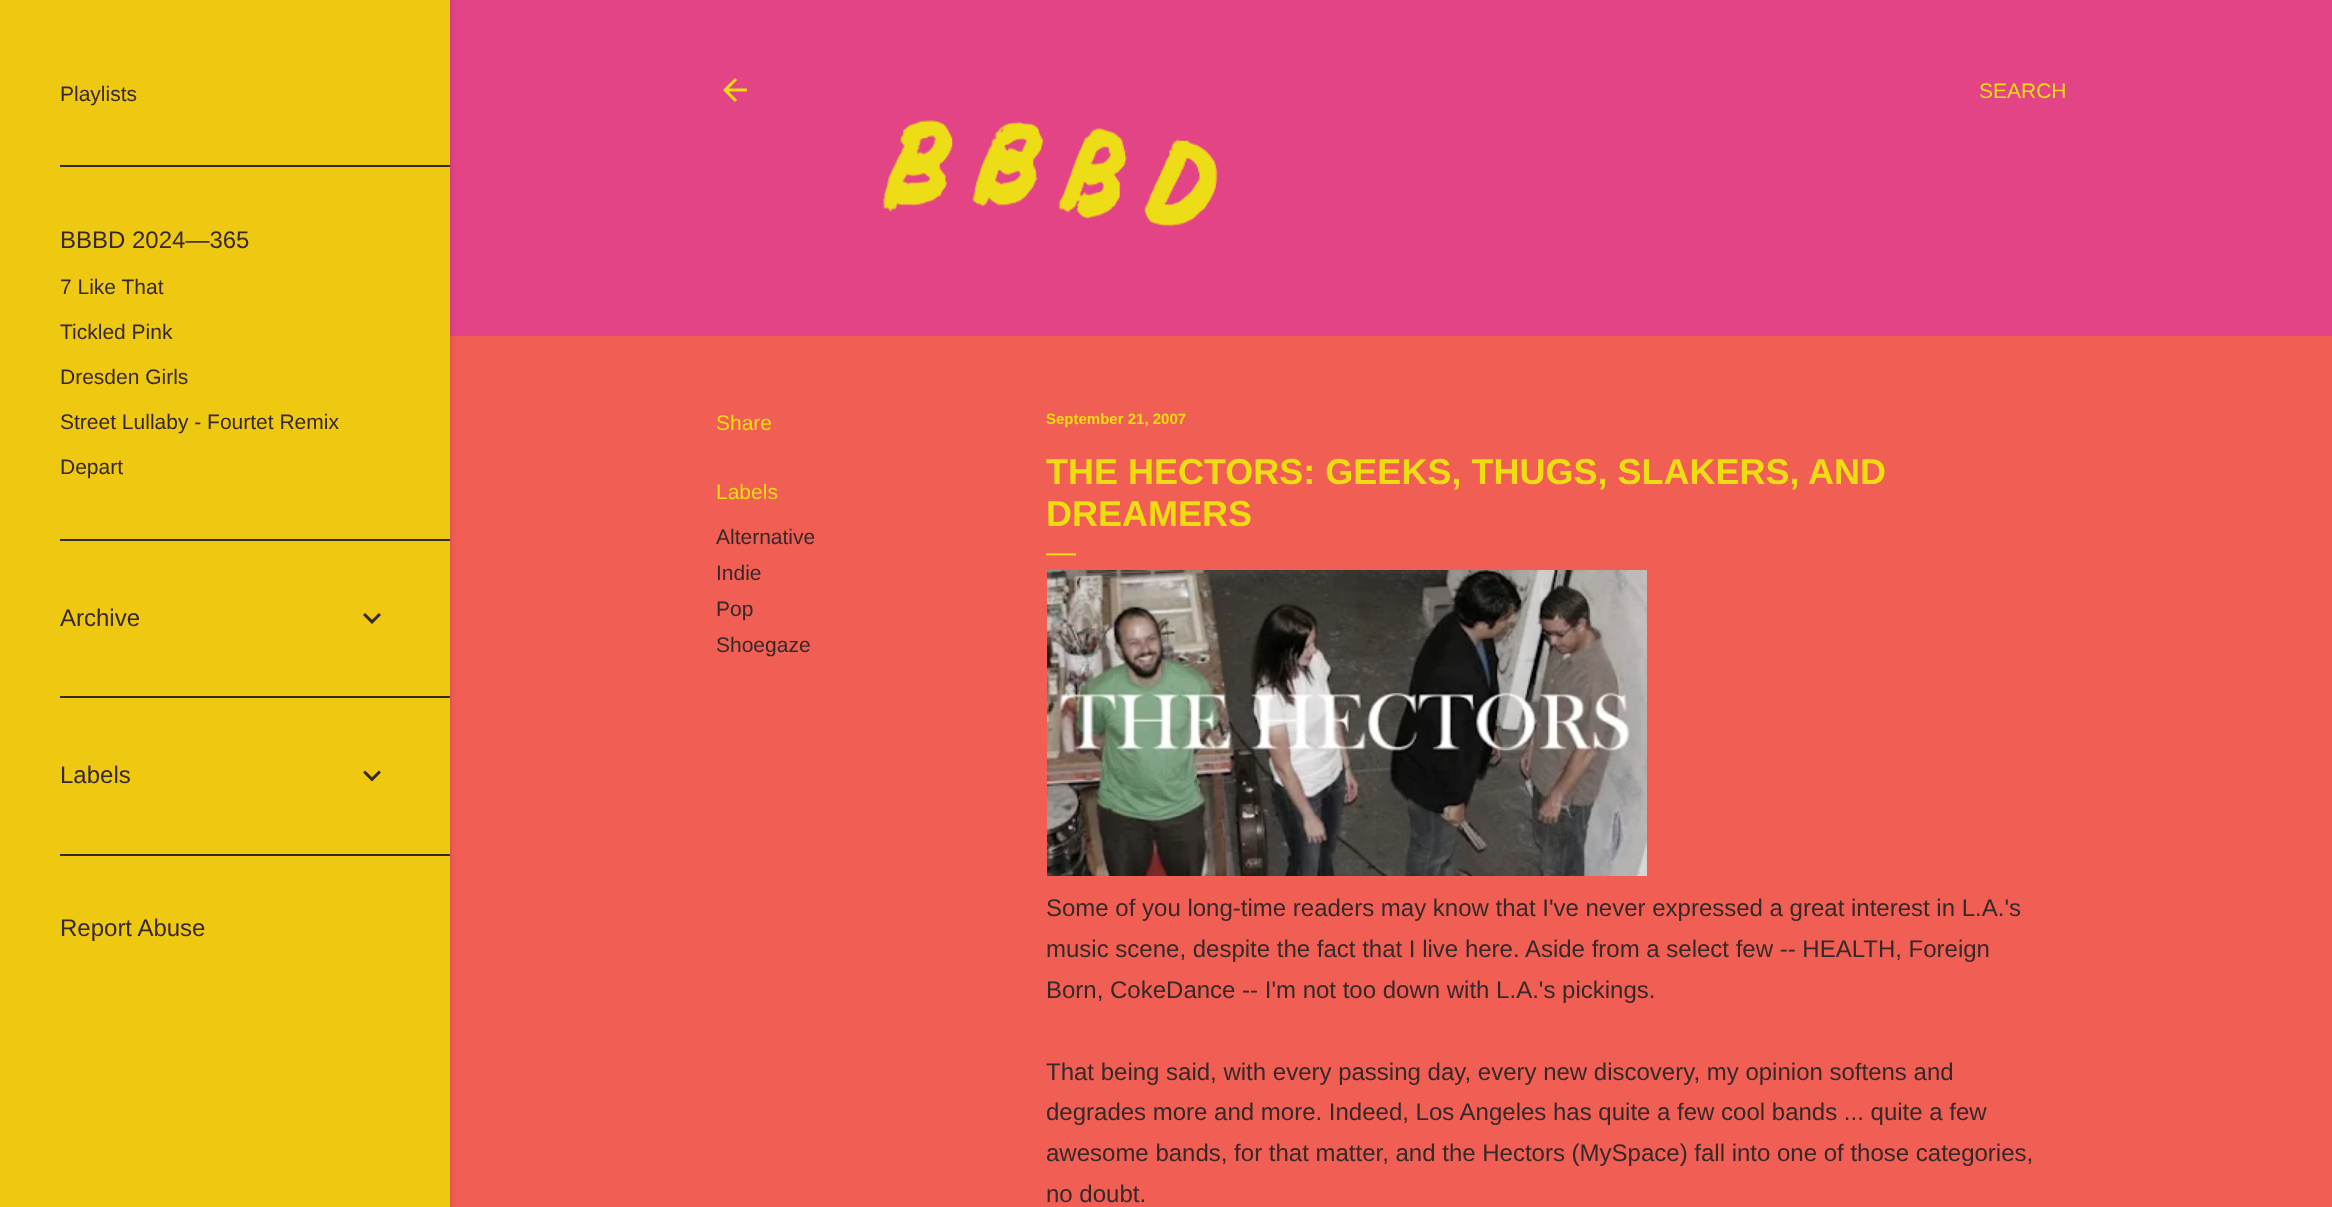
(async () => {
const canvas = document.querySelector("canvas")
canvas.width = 2332
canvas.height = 1207
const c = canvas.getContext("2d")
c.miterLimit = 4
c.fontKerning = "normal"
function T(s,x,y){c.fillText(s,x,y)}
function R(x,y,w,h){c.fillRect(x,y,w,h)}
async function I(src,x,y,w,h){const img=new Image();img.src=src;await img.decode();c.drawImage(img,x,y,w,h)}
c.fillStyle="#f05e54"
R(0,0,2332,1207)
c.fillStyle="#e24486"
R(450,0,1882,336)
c.fillStyle="#2020201a"
c.filter="blur(2px)"
c.beginPath()
c.rect(2,0,450,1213)
c.fill()
c.filter="none"
c.fillStyle="#efc812"
R(0,0,450,1207)
c.font="21px Liberation Sans"
c.fillStyle="#362929"
T("Playlists",60,101)
R(60,165,390,2)
c.font="24px Liberation Sans"
T("BBBD 2024—365",60,248)
c.font="21px Liberation Sans"
T("7 Like That",60,294)
T("Tickled Pink",60,339)
T("Dresden Girls",60,384)
T("Street Lullaby - Fourtet Remix",60,429)
T("Depart",60,474)
R(60,539,390,2)
c.font="24px Liberation Sans"
T("Archive",60,626)
await I("1.png",363,613,18,11)
R(60,696,390,2)
T("Labels",60,783)
await I("2.png",363,770,18,12)
R(60,854,390,2)
T("Report Abuse",60,936)
await I("3.png",723,78,24,24)
c.font="21px Liberation Sans"
c.fillStyle="#efdc12"
T("SEARCH",1979,98)
await I("4.png",883,120,335,107)
T("Share",716,430)
T("Labels",716,499)
c.fillStyle="#362929"
T("Alternative",716,544)
T("Indie",716,580)
T("Pop",716,616)
T("Shoegaze",716,652)
c.font="bold 15px Liberation Sans"
c.fillStyle="#efdc12"
T("September 21, 2007",1046,424)
c.font="bold 36px Liberation Sans"
T("THE HECTORS: GEEKS, THUGS, SLAKERS, AND",1046,484)
T("DREAMERS",1046,526)
c.font="30px Liberation Sans"
T("—",1046,562)
await I("5.png",1047,570,600,306)
c.font="24px Liberation Sans"
c.fillStyle="#362929"
T("Some of you long-time readers may know that I've never expressed a great interest in L.A.'s",1046,916)
T("music scene, despite the fact that I live here. Aside from a select few -- HEALTH, Foreign",1046,957)
T("Born, CokeDance -- I'm not too down with L.A.'s pickings.",1046,998)
T("That being said, with every passing day, every new discovery, my opinion softens and",1046,1080)
T("degrades more and more. Indeed, Los Angeles has quite a few cool bands ... quite a few",1046,1120)
T("awesome bands, for that matter, and the Hectors (MySpace) fall into one of those categories,",1046,1161)
T("no doubt.",1046,1202)
})()
